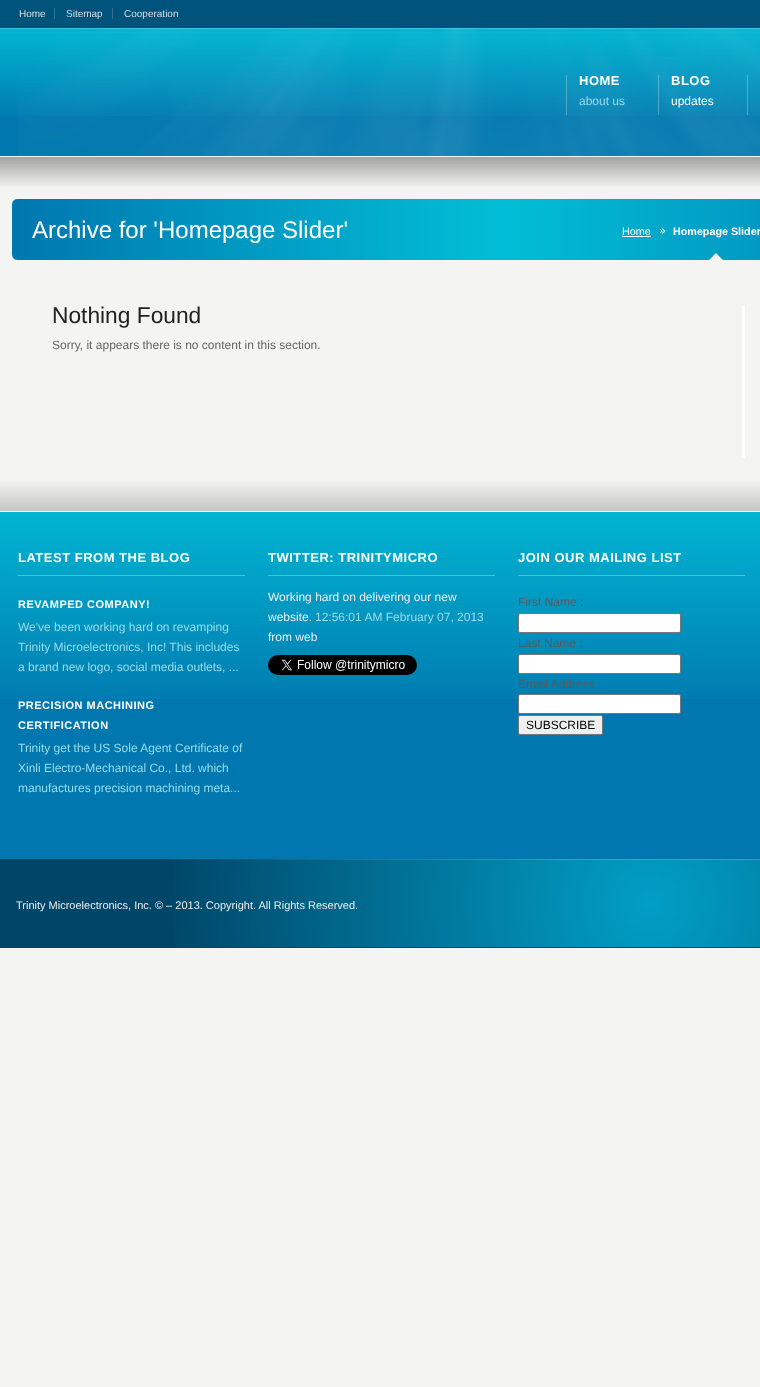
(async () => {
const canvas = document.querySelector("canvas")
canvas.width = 760
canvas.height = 1387
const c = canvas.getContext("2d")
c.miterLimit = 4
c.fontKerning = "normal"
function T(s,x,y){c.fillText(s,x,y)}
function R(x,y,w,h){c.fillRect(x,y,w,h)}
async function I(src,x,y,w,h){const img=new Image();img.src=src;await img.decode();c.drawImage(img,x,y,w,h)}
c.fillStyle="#f4f4f2"
R(0,0,760,1387)
c.fillStyle="#00547b"
R(0,0,760,28)
c.font="10px Liberation Sans"
c.fillStyle="#ddd"
T("Home",19,17)
c.fillStyle="#307494"
R(54,8,1,11)
c.fillStyle="#ddd"
T("Sitemap",66,17)
c.fillStyle="#307494"
R(112,8,1,11)
c.fillStyle="#ddd"
T("Cooperation",124,17)
c.fillStyle="#0078af"
R(0,116,760,40)
await I("1.png",0,28,760,88)
await I("2.png",18,28,742,128)
c.fillStyle="#ffffff45"
R(566,75,1,40)
c.letterSpacing="0.5px"
c.font="bold 13px Liberation Sans"
c.fillStyle="#fff"
T("HOME",579,85)
c.letterSpacing="0px"
c.font="12px Liberation Sans"
c.fillStyle="#98dce9"
T("about us",579,105)
c.fillStyle="#ffffff45"
R(658,75,1,40)
c.letterSpacing="0.5px"
c.font="bold 13px Liberation Sans"
c.fillStyle="#fff"
T("BLOG",671,85)
c.letterSpacing="0px"
c.font="12px Liberation Sans"
T("updates",671,105)
c.fillStyle="#ffffff45"
R(747,75,1,40)
await I("3.png",0,157,760,30)
await I("4.png",12,199,748,61)
await I("5.png",12,199,8,6)
await I("6.png",12,253,8,7)
c.font="24px Liberation Sans"
c.fillStyle="#fff"
T("Archive for 'Homepage Slider'",32,238)
c.font="10.75px Liberation Sans"
T("Home",622,235)
R(622,236,29,1)
await I("7.png",660,228,6,6)
c.font="bold 10.75px Liberation Sans"
T("Homepage Slider",673,235)
await I("8.png",709,253,14,7)
c.font="22.75px Liberation Sans"
c.fillStyle="#222"
T("Nothing Found",52,323)
c.font="12px Liberation Sans"
c.fillStyle="#666"
T("Sorry, it appears there is no content in this section.",52,349)
c.fillStyle="#fff"
R(742,305,3,153)
c.fillStyle="#0078af"
R(0,699,760,160)
await I("9.png",0,463,760,236)
c.fillStyle="#4ec0d9"
R(18,575,227,1)
c.letterSpacing="0.5px"
c.font="bold 13px Liberation Sans"
c.fillStyle="#fff"
T("LATEST FROM THE BLOG",18,562)
c.font="bold 11px Liberation Sans"
T("REVAMPED COMPANY!",18,608)
c.letterSpacing="0px"
c.font="12px Liberation Sans"
c.fillStyle="#98dce9"
T("We've been working hard on revamping",18,631)
T("Trinity Microelectronics, Inc! This includes",18,651)
T("a brand new logo, social media outlets, ...",18,671)
c.letterSpacing="0.5px"
c.font="bold 11px Liberation Sans"
c.fillStyle="#fff"
T("PRECISION MACHINING",18,709)
T("CERTIFICATION",18,729)
c.letterSpacing="0px"
c.font="12px Liberation Sans"
c.fillStyle="#98dce9"
T("Trinity get the US Sole Agent Certificate of",18,752)
T("Xinli Electro-Mechanical Co., Ltd. which",18,772)
T("manufactures precision machining meta...",18,792)
c.fillStyle="#4ec0d9"
R(268,575,227,1)
c.letterSpacing="0.5px"
c.font="bold 13px Liberation Sans"
c.fillStyle="#fff"
T("TWITTER: TRINITYMICRO",268,562)
c.letterSpacing="0px"
c.font="12px Liberation Sans"
c.fillStyle="#eee"
T("Working hard on delivering our new",268,601)
T("website.",268,621)
c.fillStyle="#98dce9"
T("12:56:01 AM February 07, 2013",315,621)
c.fillStyle="#eee"
T("from web",268,641)
await I("10.png",268,655,149,20)
c.fillStyle="#4ec0d9"
R(518,575,227,1)
c.letterSpacing="0.5px"
c.font="bold 13px Liberation Sans"
c.fillStyle="#fff"
T("JOIN OUR MAILING LIST",518,562)
c.letterSpacing="0px"
c.font="12px Liberation Sans"
c.fillStyle="#575c60"
T("First Name :",518,606)
c.fillStyle="#fff"
c.beginPath()
c.roundRect(518.5,613.5,162,19,1.5)
c.fill()
c.strokeStyle="#767676"
c.stroke()
c.fillStyle="#575c60"
T("Last Name :",518,647)
c.fillStyle="#fff"
c.beginPath()
c.roundRect(518.5,654.5,162,19,1.5)
c.fill()
c.stroke()
c.fillStyle="#575c60"
T("Email Address :",518,688)
c.fillStyle="#fff"
c.beginPath()
c.roundRect(518.5,694.5,162,19,1.5)
c.fill()
c.stroke()
c.fillStyle="#efefef"
c.beginPath()
c.roundRect(518.5,715.5,84,19,1.5)
c.fill()
c.stroke()
c.fillStyle="#000"
T("SUBSCRIBE",526,729)
c.fillStyle="#004668"
R(0,859,760,89)
await I("11.png",174,859,586,88)
c.font="11px Liberation Sans"
c.fillStyle="#eee"
T("Trinity Microelectronics, Inc. © – 2013. Copyright. All Rights Reserved.",16,909)
})()
